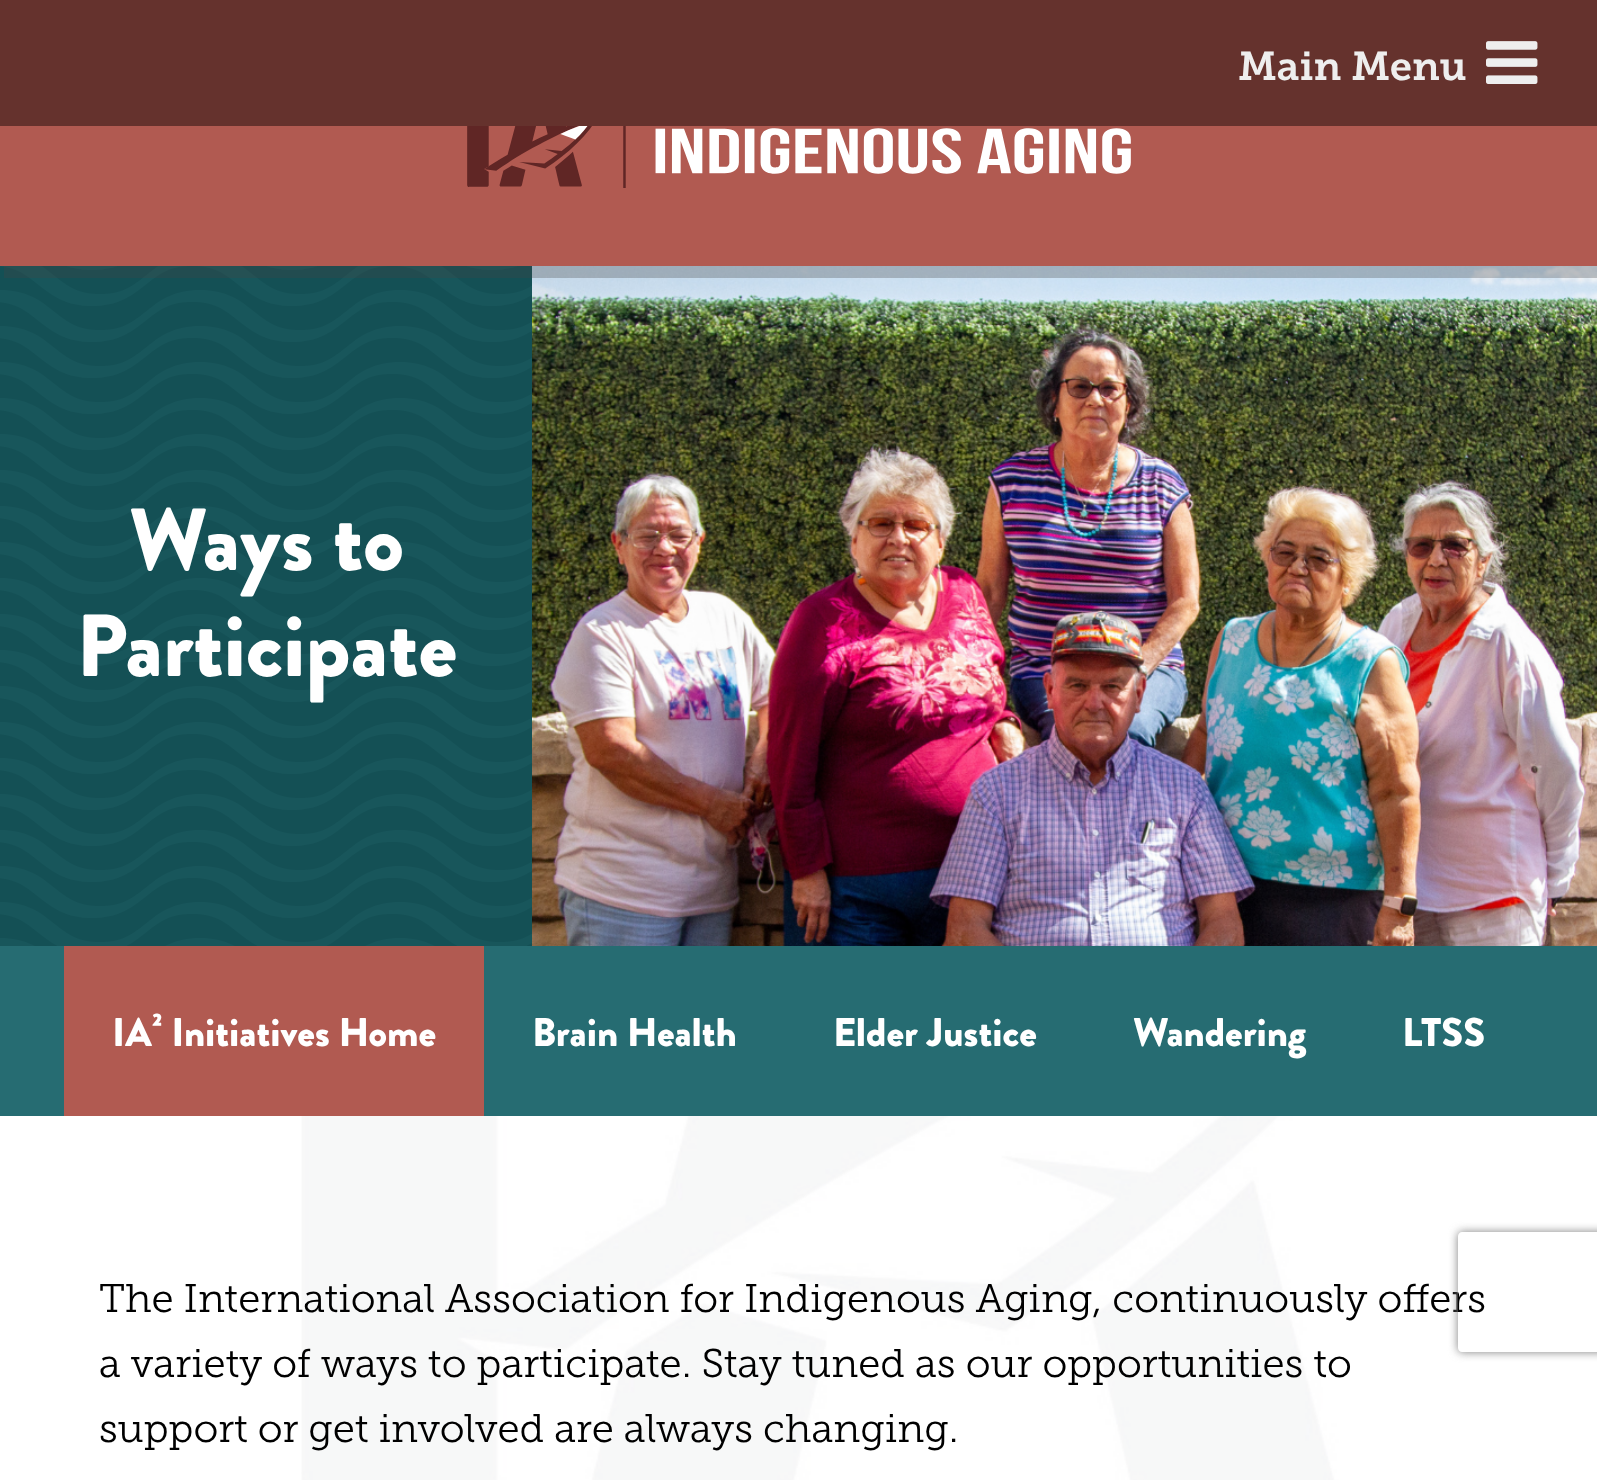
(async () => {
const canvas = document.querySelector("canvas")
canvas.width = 1597
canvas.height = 1480
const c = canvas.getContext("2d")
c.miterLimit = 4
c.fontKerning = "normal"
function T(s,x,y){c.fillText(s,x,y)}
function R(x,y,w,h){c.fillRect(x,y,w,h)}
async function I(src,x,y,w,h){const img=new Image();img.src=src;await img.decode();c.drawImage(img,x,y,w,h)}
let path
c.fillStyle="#fff"
R(0,0,1597,1480)
await I("1.png",301,1116,1200,364)
c.fillStyle="#65322d"
R(0,0,1597,126)
c.font="600 40px 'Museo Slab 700'"
c.fillStyle="#eee"
T("Main Menu",1238,80)
await I("2.png",1486,41,52,43)
c.fillStyle="#145055"
R(0,266,532,680)
await I("4.png",0,266,532,680)
await I("5.png",532,266,1065,680)
c.fillStyle="#4646464d"
path = new Path2D("M4 266v12h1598v-266h-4v254z")
c.fill(path)
c.fillStyle="#b15a51"
R(0,126,1597,140)
await I("3.png",467,126,664,62)
c.font="900 88px Brandon Grotesque"
c.fillStyle="#fff"
T("Ways to",129,570)
T("Participate",76,676)
c.fillStyle="#266c72"
R(0,946,1597,170)
c.fillStyle="#b15a51"
R(64,946,420,170)
c.font="900 40px Brandon Grotesque"
c.fillStyle="#fff"
T("IA² Initiatives Home",112,1046)
T("Brain Health",532,1046)
T("Elder Justice",833,1046)
T("Wandering",1133,1046)
T("LTSS",1402,1046)
c.font="300 40px 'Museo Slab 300'"
c.fillStyle="#000"
T("The International Association for Indigenous Aging, continuously offers",99,1312)
T("a variety of ways to participate. Stay tuned as our opportunities to",99,1377)
T("support or get involved are always changing.",99,1442)
c.save()
path = new Path2D("M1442 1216h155v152h-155zm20 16h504c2 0 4 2 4 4v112c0 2-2 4-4 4h-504c-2 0-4-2-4-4v-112c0-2 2-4 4-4z")
c.clip(path,"evenodd")
c.fillStyle="#808080"
c.filter="blur(5px)"
c.beginPath()
c.roundRect(1458,1232,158,120,4)
c.fill()
c.filter="none"
c.restore()
})()
